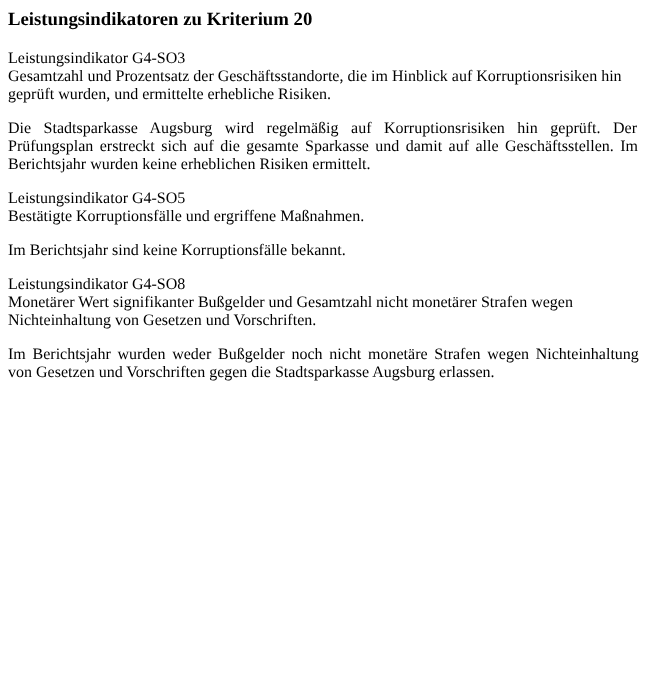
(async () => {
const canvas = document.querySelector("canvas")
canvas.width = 646
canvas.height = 684
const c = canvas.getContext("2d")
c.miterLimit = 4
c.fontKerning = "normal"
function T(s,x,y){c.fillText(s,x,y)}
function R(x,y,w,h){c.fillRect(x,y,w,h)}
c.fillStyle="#fff"
R(0,0,646,684)
c.font="bold 18.75px Liberation Serif"
c.fillStyle="#000"
T("Leistungsindikatoren zu Kriterium 20",8,25)
c.font="16px Liberation Serif"
T("Leistungsindikator G4-SO3",8,63)
T("Gesamtzahl und Prozentsatz der Geschäftsstandorte, die im Hinblick auf Korruptionsrisiken hin",8,81)
T("geprüft wurden, und ermittelte erhebliche Risiken.",8,99)
c.wordSpacing="8.5px"
T("Die Stadtsparkasse Augsburg wird regelmäßig auf Korruptionsrisiken hin geprüft. Der",8,133)
c.wordSpacing="2.4px"
T("Prüfungsplan erstreckt sich auf die gesamte Sparkasse und damit auf alle Geschäftsstellen. Im",8,151)
c.wordSpacing="0px"
T("Berichtsjahr wurden keine erheblichen Risiken ermittelt.",8,169)
T("Leistungsindikator G4-SO5",8,203)
T("Bestätigte Korruptionsfälle und ergriffene Maßnahmen.",8,221)
T("Im Berichtsjahr sind keine Korruptionsfälle bekannt.",8,255)
T("Leistungsindikator G4-SO8",8,289)
T("Monetärer Wert signifikanter Bußgelder und Gesamtzahl nicht monetärer Strafen wegen",8,307)
T("Nichteinhaltung von Gesetzen und Vorschriften.",8,325)
c.wordSpacing="2.75px"
T("Im Berichtsjahr wurden weder Bußgelder noch nicht monetäre Strafen wegen Nichteinhaltung",8,359)
c.wordSpacing="0px"
T("von Gesetzen und Vorschriften gegen die Stadtsparkasse Augsburg erlassen.",8,377)
})()
